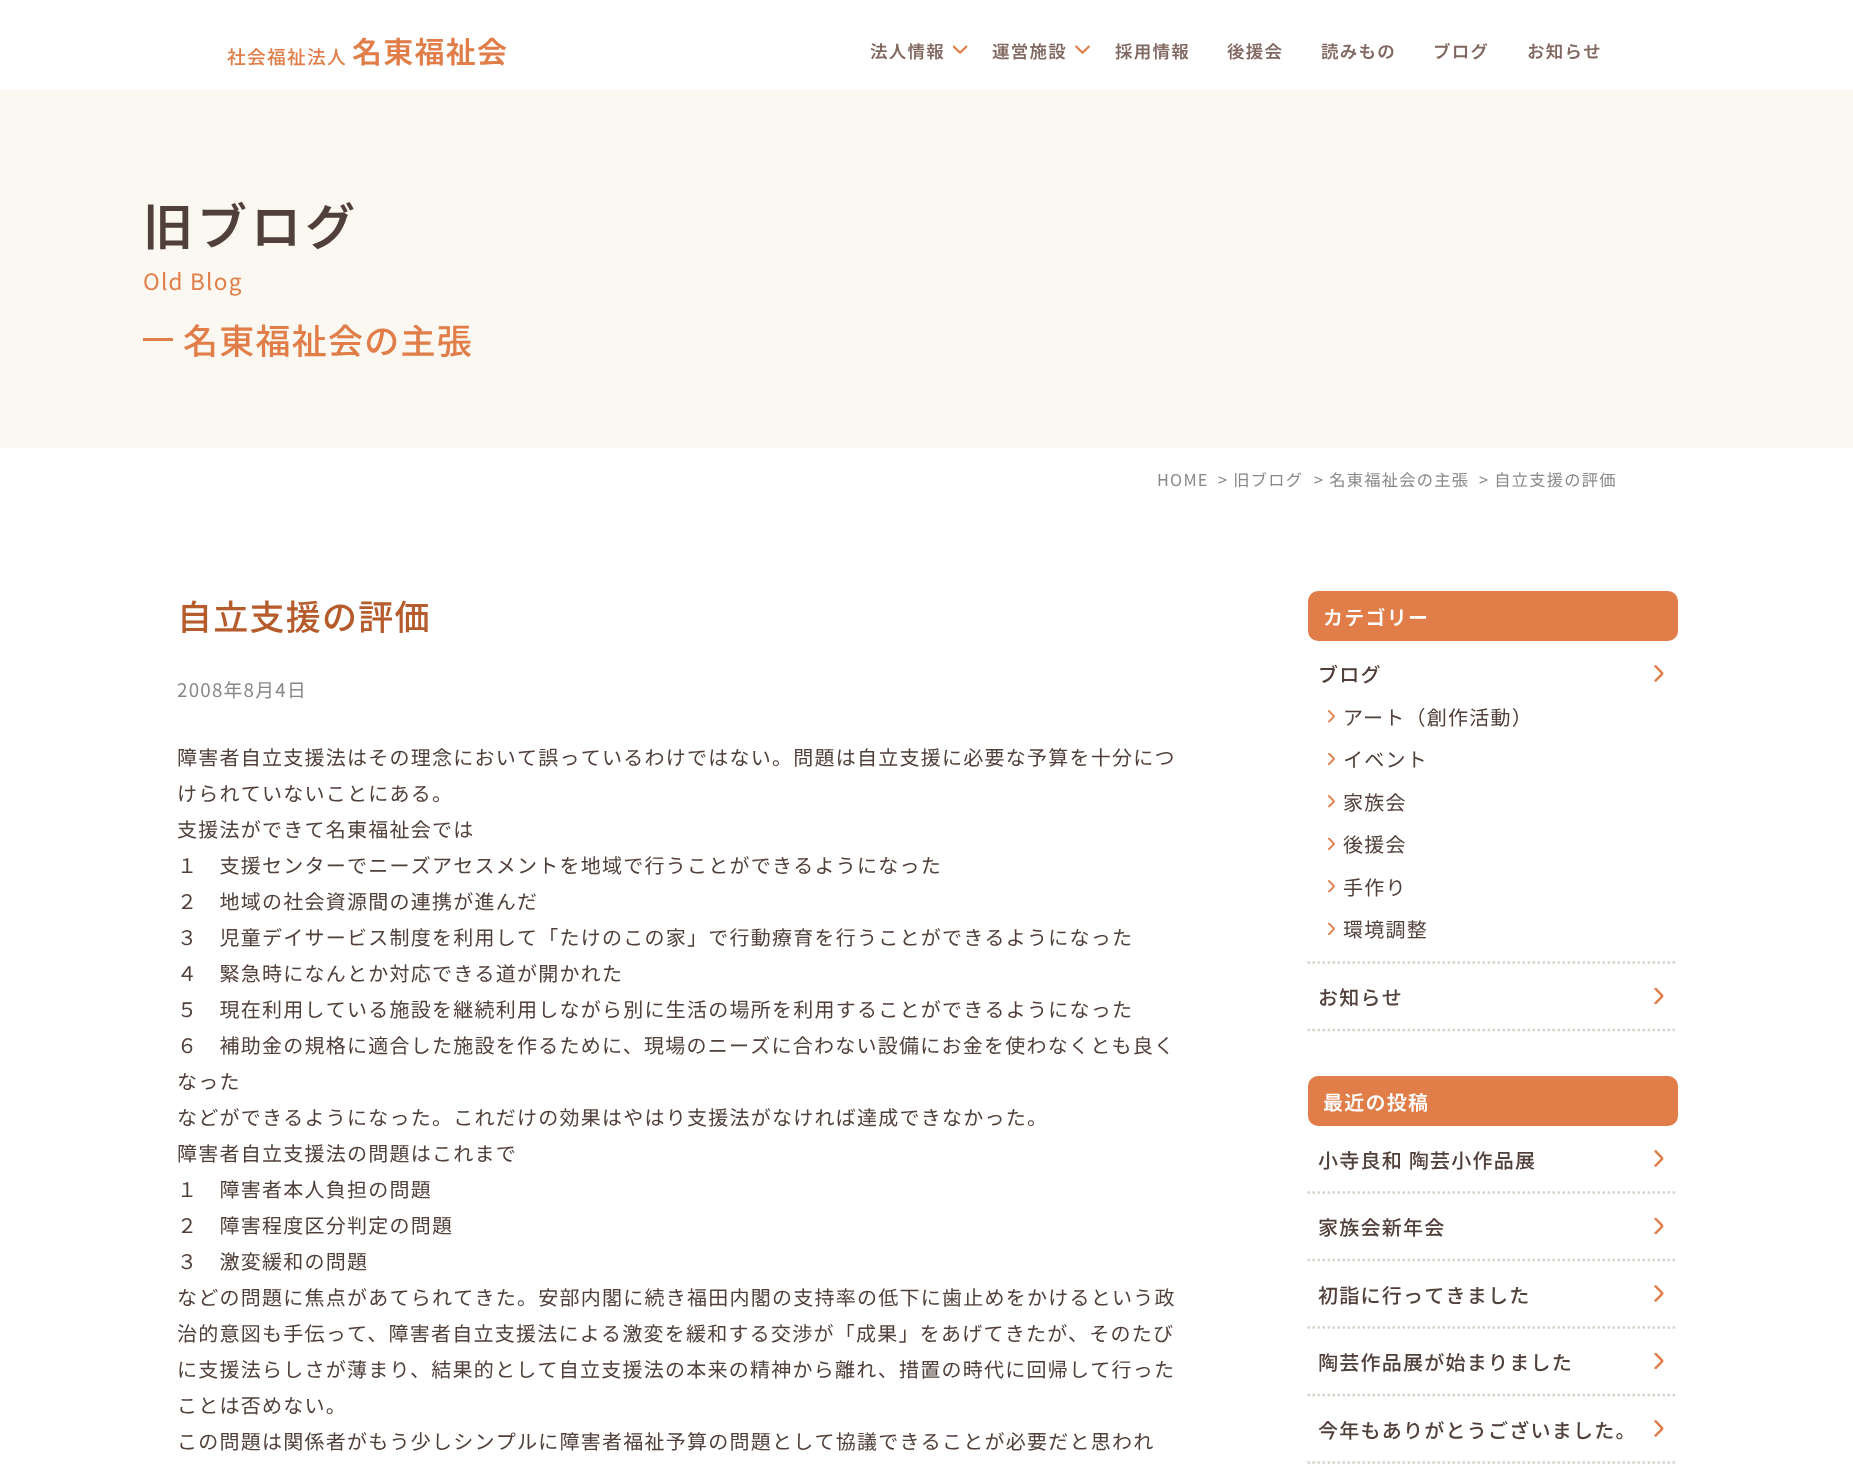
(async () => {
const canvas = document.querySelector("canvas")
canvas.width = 1853
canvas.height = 1467
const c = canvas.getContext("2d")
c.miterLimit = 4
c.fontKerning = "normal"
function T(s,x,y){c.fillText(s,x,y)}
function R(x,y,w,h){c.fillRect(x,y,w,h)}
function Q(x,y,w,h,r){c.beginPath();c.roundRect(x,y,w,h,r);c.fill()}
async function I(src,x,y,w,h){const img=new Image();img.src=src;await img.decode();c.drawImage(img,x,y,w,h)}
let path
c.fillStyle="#fff"
R(0,0,1853,1467)
c.letterSpacing="1.25px"
c.font="500 18.75px Noto Sans JP"
c.fillStyle="#e07d48"
T("社会福祉法人",227,64)
c.font="600 30px Noto Sans JP"
T("名東福祉会",352,63)
await I("1.png",953,45,15,9)
c.font="600 17.5px Noto Sans JP"
c.fillStyle="#806860"
T("法人情報",870,58)
await I("2.png",1075,45,15,9)
T("運営施設",992,58)
T("採用情報",1115,58)
T("後援会",1227,58)
T("読みもの",1321,58)
T("ブログ",1433,58)
T("お知らせ",1527,58)
c.fillStyle="#faf8f0"
R(0,90,1853,358)
c.letterSpacing="4px"
c.font="600 50px Noto Sans JP"
c.fillStyle="#51403a"
T("旧ブログ",143,245)
c.letterSpacing="1.25px"
c.font="22.5px Noto Sans JP"
c.fillStyle="#e07d48"
T("Old Blog",143,290)
R(143,338,30,3)
c.font="500 35px Noto Sans JP"
T("名東福祉会の主張",183,354)
c.font="16.25px Noto Sans JP"
c.fillStyle="#888"
T("HOME",1157,486)
T("> 旧ブログ",1218,486)
T("> 名東福祉会の主張",1314,486)
T("> 自立支援の評価",1479,486)
c.font="500 35px Noto Sans JP"
c.fillStyle="#b65b2b"
T("自立支援の評価",177,630)
c.font="18.75px Noto Sans JP"
c.fillStyle="#888"
T("2008年8月4日",177,697)
c.font="20px Noto Sans JP"
c.fillStyle="#51403a"
T("障害者自立支援法はその理念において誤っているわけではない。問題は自立支援に必要な予算を十分につ",177,765)
T("けられていないことにある。",177,801)
T("支援法ができて名東福祉会では",177,837)
T("１　支援センターでニーズアセスメントを地域で行うことができるようになった",177,873)
T("２　地域の社会資源間の連携が進んだ",177,909)
T("３　児童デイサービス制度を利用して「たけのこの家」で行動療育を行うことができるようになった",177,945)
T("４　緊急時になんとか対応できる道が開かれた",177,981)
T("５　現在利用している施設を継続利用しながら別に生活の場所を利用することができるようになった",177,1017)
T("６　補助金の規格に適合した施設を作るために、現場のニーズに合わない設備にお金を使わなくとも良く",177,1053)
T("なった",177,1089)
T("などができるようになった。これだけの効果はやはり支援法がなければ達成できなかった。",177,1125)
T("障害者自立支援法の問題はこれまで",177,1161)
T("１　障害者本人負担の問題",177,1197)
T("２　障害程度区分判定の問題",177,1233)
T("３　激変緩和の問題",177,1269)
T("などの問題に焦点があてられてきた。安部内閣に続き福田内閣の支持率の低下に歯止めをかけるという政",177,1305)
T("治的意図も手伝って、障害者自立支援法による激変を緩和する交渉が「成果」をあげてきたが、そのたび",177,1341)
T("に支援法らしさが薄まり、結果的として自立支援法の本来の精神から離れ、措置の時代に回帰して行った",177,1377)
T("ことは否めない。",177,1413)
T("この問題は関係者がもう少しシンプルに障害者福祉予算の問題として協議できることが必要だと思われ",177,1449)
c.fillStyle="#e07d48"
Q(1308,591,370,50,10)
c.font="600 20px Noto Sans JP"
c.fillStyle="#fff"
T("カテゴリー",1323,625)
path = new Path2D("M1307.5 962.5h370")
c.strokeStyle="#d6d3ca"
c.lineWidth=2.5
c.setLineDash([2.5,2.5])
c.stroke(path)
await I("3.png",1654,665,10,17)
c.font="500 20px Noto Sans JP"
c.fillStyle="#51403a"
T("ブログ",1318,682)
await I("4.png",1328,710,7,13)
c.font="20px Noto Sans JP"
T("アート（創作活動）",1343,725)
await I("5.png",1328,753,7,12)
T("イベント",1343,767)
await I("4.png",1328,795,7,13)
T("家族会",1343,810)
await I("5.png",1328,838,7,12)
T("後援会",1343,852)
await I("4.png",1328,880,7,13)
T("手作り",1343,895)
await I("5.png",1328,923,7,12)
T("環境調整",1343,937)
path = new Path2D("M1307.5 1030h370")
c.stroke(path)
await I("6.png",1654,988,10,17)
c.font="500 20px Noto Sans JP"
T("お知らせ",1318,1005)
c.fillStyle="#e07d48"
Q(1308,1076,370,50,10)
c.font="600 20px Noto Sans JP"
c.fillStyle="#fff"
T("最近の投稿",1323,1110)
path = new Path2D("M1307.5 1192.5h370")
c.stroke(path)
await I("3.png",1654,1150,10,17)
c.font="500 20px Noto Sans JP"
c.fillStyle="#51403a"
T("小寺良和 陶芸小作品展",1318,1168)
path = new Path2D("M1307.5 1260h370")
c.stroke(path)
await I("6.png",1654,1218,10,17)
T("家族会新年会",1318,1235)
path = new Path2D("M1307.5 1327.5h370")
c.stroke(path)
await I("3.png",1654,1285,10,17)
T("初詣に行ってきました",1318,1303)
path = new Path2D("M1307.5 1395h370")
c.stroke(path)
await I("6.png",1654,1353,10,17)
T("陶芸作品展が始まりました",1318,1370)
path = new Path2D("M1307.5 1462.5h370")
c.stroke(path)
await I("3.png",1654,1420,10,17)
T("今年もありがとうございました。",1318,1438)
})()
